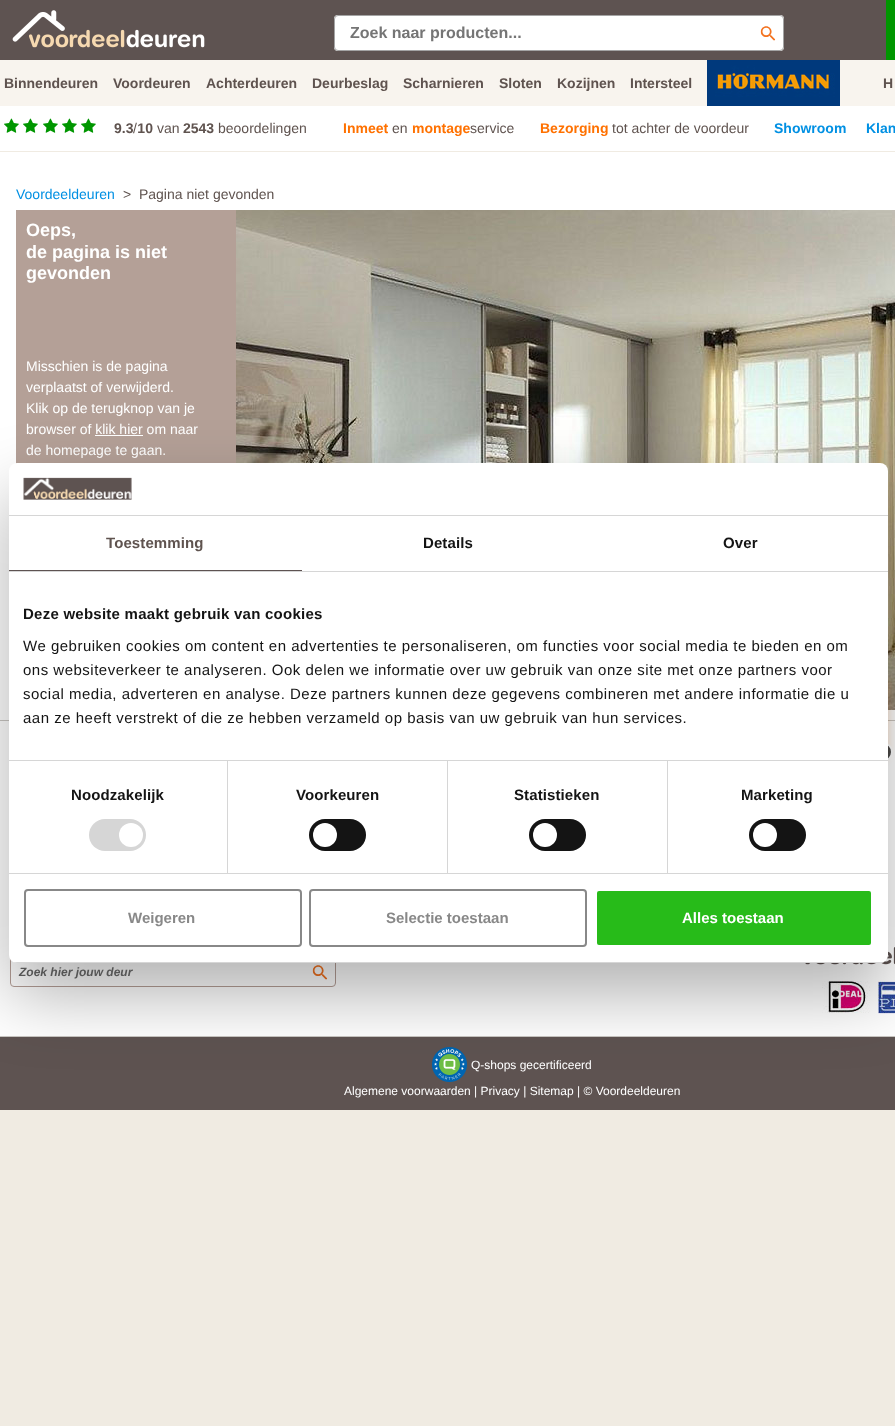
(async () => {
const canvas = document.querySelector("canvas")
canvas.width = 895
canvas.height = 1426
const c = canvas.getContext("2d")
c.miterLimit = 4
c.fontKerning = "normal"
function T(s,x,y){c.fillText(s,x,y)}
function R(x,y,w,h){c.fillRect(x,y,w,h)}
function Q(x,y,w,h,r){c.beginPath();c.roundRect(x,y,w,h,r);c.fill()}
async function I(src,x,y,w,h){const img=new Image();img.src=src;await img.decode();c.drawImage(img,x,y,w,h)}
c.fillStyle="#f0ebe2"
R(0,0,895,1426)
c.fillStyle="#fff"
R(0,106,895,930)
c.fillStyle="#5e5351"
R(0,0,886,60)
await I("1.png",12,10,193,38)
c.fillStyle="#fff"
Q(334,15,450,36,4)
await I("2.png",760,26,16,15)
c.beginPath()
c.roundRect(334.5,15.5,449,35,3.5)
c.strokeStyle="#a4a4a4"
c.stroke()
c.font="bold 16px Liberation Sans"
c.fillStyle="#757575"
T("Zoek naar producten...",350,38)
c.fillStyle="#009600"
R(886,0,9,60)
c.fillStyle="#f8f4ee"
R(0,60,895,46)
c.font="bold 14px Liberation Sans"
c.fillStyle="#5f534f"
T("Binnendeuren",4,88)
T("Voordeuren",113,88)
T("Achterdeuren",206,88)
T("Deurbeslag",312,88)
T("Scharnieren",403,88)
T("Sloten",499,88)
T("Kozijnen",557,88)
T("Intersteel",630,88)
await I("3.png",707,60,133,46)
T("H",883,88)
c.fillStyle="#f0ebe2"
R(0,151,895,1)
await I("4.png",4,118,15,15)
await I("4.png",23,118,15,15)
await I("4.png",43,118,15,15)
await I("4.png",62,118,15,15)
await I("4.png",81,118,15,15)
c.fillStyle="#5f534f"
T("9.3 10",114,133)
c.font="14px Liberation Sans"
T("/",133,133)
T("beoordelingen",218,133)
c.font="bold 14px Liberation Sans"
c.fillStyle="#ff7100"
T("Inmeet",343,133)
c.font="14px Liberation Sans"
c.fillStyle="#5f534f"
T("en",392,133)
c.font="bold 14px Liberation Sans"
c.fillStyle="#ff7100"
T("montage",412,133)
c.font="14px Liberation Sans"
c.fillStyle="#5f534f"
T("service",470,133)
c.font="bold 14px Liberation Sans"
c.fillStyle="#ff7100"
T("Bezorging",540,133)
c.font="14px Liberation Sans"
c.fillStyle="#5f534f"
T("tot achter de voordeur",612,133)
T("van",157,133)
c.font="bold 14px Liberation Sans"
T("2543",183,133)
c.fillStyle="#0090e3"
T("Showroom",774,133)
T("Klan",866,133)
c.font="14px Liberation Sans"
T("Voordeeldeuren",16,199)
c.fillStyle="#5f534f"
T(">  Pagina niet gevonden",123,199)
c.fillStyle="#b4a097"
R(16,210,220,254)
await I("5.png",236,210,659,500)
c.font="bold 18px Liberation Sans"
c.fillStyle="#fff"
T("Oeps,",26,236)
T("de pagina is niet",26,258)
T("gevonden",26,279)
c.font="14px Liberation Sans"
T("Misschien is de pagina",26,371)
T("verplaatst of verwijderd.",26,392)
T("Klik op de terugknop van je",26,413)
T("browser of klik hier om naar",26,434)
R(95,435,48,1)
T("de homepage te gaan.",26,455)
c.fillStyle="#cac7c3"
R(0,720,895,1)
c.fillStyle="#ff71004d"
c.filter="blur(5px)"
c.beginPath()
c.roundRect(732,675,154,84,8)
c.fill()
c.filter="none"
c.fillStyle="#000000b3"
c.beginPath()
c.arc(883,752,9,0,7)
c.fill()
c.strokeStyle="#fff"
c.lineWidth=2
c.stroke()
await I("2.png",312,965,16,15)
c.beginPath()
c.roundRect(10.5,957.5,325,29,3.5)
c.strokeStyle="#b59f97"
c.lineWidth=1
c.stroke()
await I("7.png",805,947,90,18)
await I("8.png",822,981,73,33)
c.fillStyle="#5e5351"
R(0,1037,895,73)
c.fillStyle="#cac7c3"
R(0,1036,895,1)
await I("9.png",432,1047,35,35)
c.fillStyle="#0000004d"
c.filter="blur(34px)"
c.beginPath()
c.roundRect(9,495,879,500,8)
c.fill()
c.filter="none"
c.fillStyle="#fff"
Q(9,463,879,500,8)
c.fillStyle="#d6d6d6"
R(9,515,879,1)
await I("6.png",23,477,109,23)
R(9,571,879,1)
c.fillStyle="#5e5351"
R(9,570,293,1)
c.letterSpacing="0.1px"
c.font="bold 15px Liberation Sans"
c.fillStyle="#5f534f"
T("Toestemming",106,548)
c.fillStyle="#141414"
T("Details",423,548)
T("Over",723,548)
c.fillStyle="#d6d6d6"
R(9,760,879,1)
c.letterSpacing="0.25px"
c.fillStyle="#141414"
T("Deze website maakt gebruik van cookies",23,619)
c.letterSpacing="0.5px"
c.font="15px Liberation Sans"
T("We gebruiken cookies om content en advertenties te personaliseren, om functies voor social media te bieden en om",23,651)
T("ons websiteverkeer te analyseren. Ook delen we informatie over uw gebruik van onze site met onze partners voor",23,675)
T("social media, adverteren en analyse. Deze partners kunnen deze gegevens combineren met andere informatie die u",23,699)
T("aan ze heeft verstrekt of die ze hebben verzameld op basis van uw gebruik van hun services.",23,723)
c.fillStyle="#d6d6d6"
R(9,873,879,1)
R(227,761,1,112)
c.letterSpacing="0.1px"
c.font="bold 15px Liberation Sans"
c.fillStyle="#141414"
T("Noodzakelijk",71,800)
c.fillStyle="#d6d6d6"
Q(89,819,57,32,16)
c.fillStyle="#fff"
c.beginPath()
c.arc(131,835,12,0,7)
c.fill()
c.fillStyle="#d6d6d6"
R(447,761,1,112)
c.fillStyle="#141414"
T("Voorkeuren",296,800)
Q(309,819,57,32,16)
c.fillStyle="#fff"
c.beginPath()
c.arc(325,835,12,0,7)
c.fill()
c.fillStyle="#d6d6d6"
R(667,761,1,112)
c.fillStyle="#141414"
T("Statistieken",514,800)
Q(529,819,57,32,16)
c.fillStyle="#fff"
c.beginPath()
c.arc(545,835,12,0,7)
c.fill()
c.fillStyle="#141414"
T("Marketing",741,800)
Q(749,819,57,32,16)
c.fillStyle="#fff"
c.beginPath()
c.arc(765,835,12,0,7)
c.fill()
c.save()
c.beginPath()
c.roundRect(9,463,879,500,8)
c.clip()
c.fillStyle="#d6d6d6"
R(9,962,879,1)
c.restore()
c.beginPath()
c.roundRect(25,890,276,56,3)
c.strokeStyle="#888"
c.lineWidth=2
c.stroke()
c.letterSpacing="0px"
c.fillStyle="#888"
T("Weigeren",128,923)
c.beginPath()
c.roundRect(310,890,276,56,3)
c.stroke()
T("Selectie toestaan",386,923)
c.fillStyle="#27bb19"
c.beginPath()
c.roundRect(596,890,276,56,3)
c.fill()
c.strokeStyle="#fff"
c.stroke()
c.fillStyle="#fff"
T("Alles toestaan",682,923)
c.font="italic bold 12px Liberation Sans"
c.fillStyle="#555"
T("Zoek hier jouw deur",19,976)
c.font="12px Liberation Sans"
c.fillStyle="#fff"
T("Q-shops gecertificeerd",471,1069)
T("Algemene voorwaarden | Privacy | Sitemap | © Voordeeldeuren",344,1095)
})()
